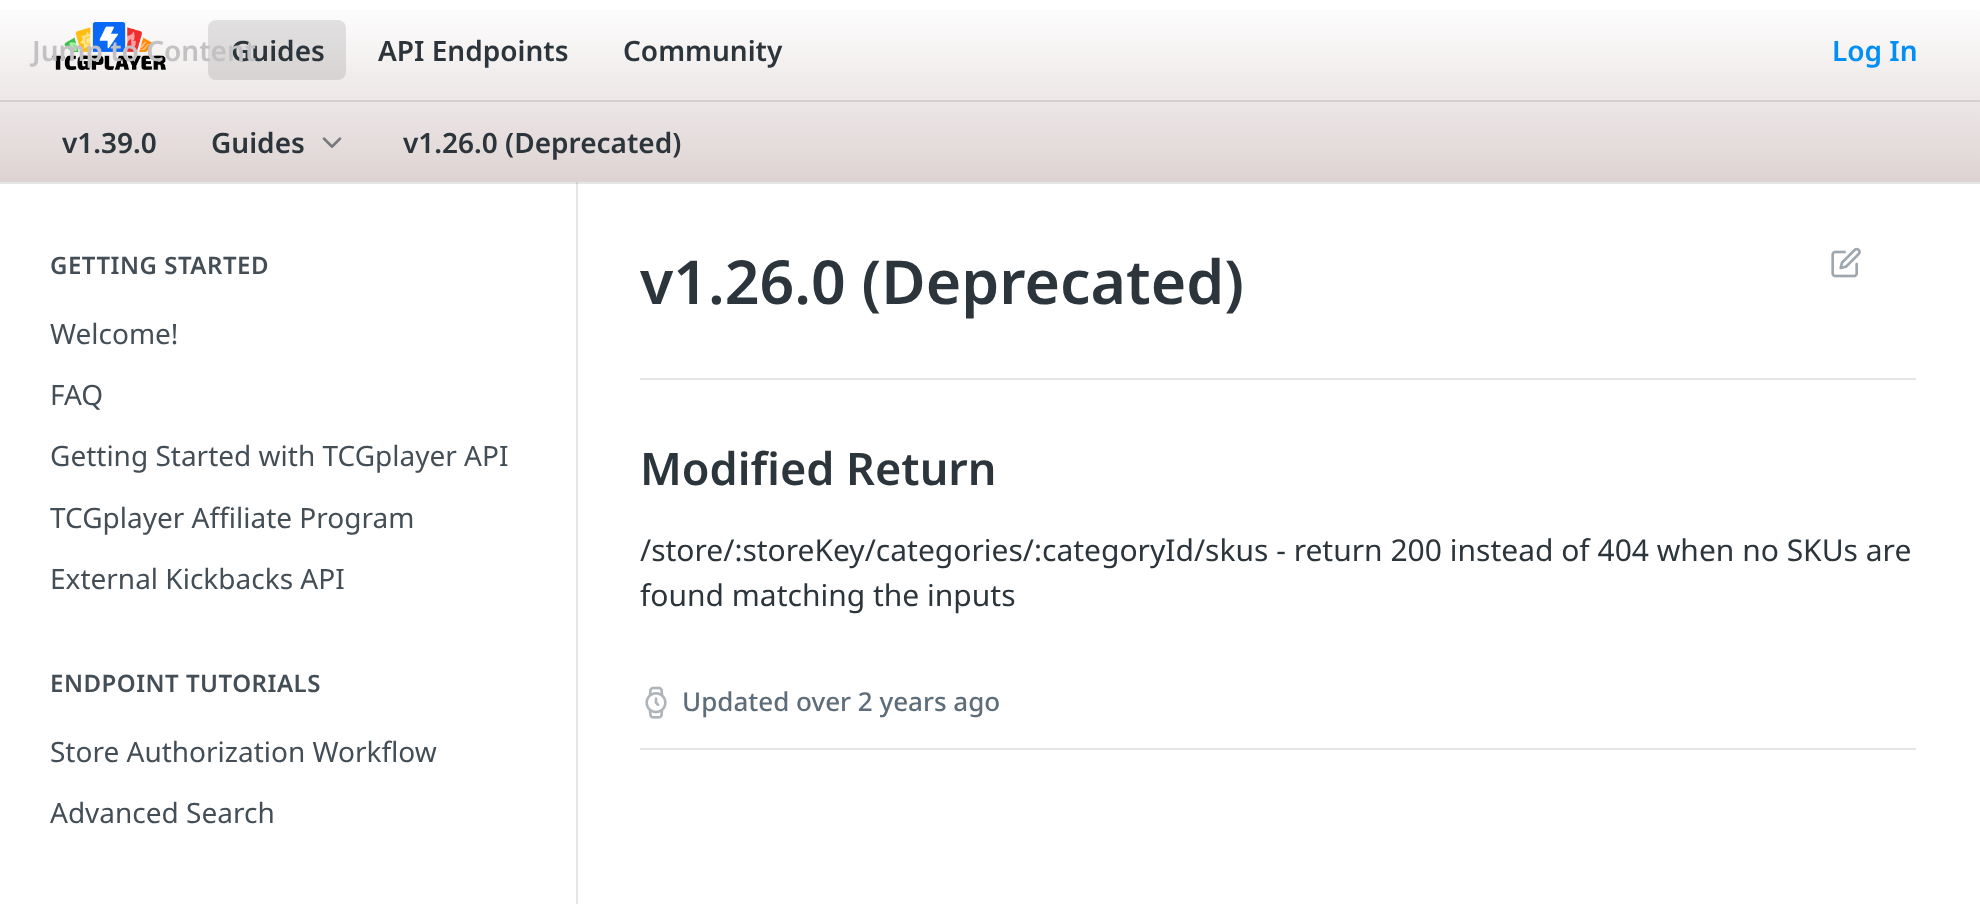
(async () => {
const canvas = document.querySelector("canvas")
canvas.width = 1980
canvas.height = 904
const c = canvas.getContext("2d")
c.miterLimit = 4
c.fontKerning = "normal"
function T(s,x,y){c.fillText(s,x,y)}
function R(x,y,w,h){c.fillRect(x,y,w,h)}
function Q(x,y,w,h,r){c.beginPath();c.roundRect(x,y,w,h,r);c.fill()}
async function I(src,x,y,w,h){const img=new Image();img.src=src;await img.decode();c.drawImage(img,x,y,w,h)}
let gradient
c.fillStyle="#fff"
R(0,0,1980,904)
c.fillStyle="#e6e6e6"
R(0,182,1980,2)
gradient = c.createLinearGradient(990,0,990,182)
gradient.addColorStop(0,"#fff")
gradient.addColorStop(1,"#ded3d3")
c.fillStyle = gradient
R(0,10,1980,172)
c.fillStyle="#d5cfcf"
R(0,100,1980,2)
await I("1.png",52,22,114,48)
c.fillStyle="#0000001a"
Q(208,20,138,60,8)
c.font="600 28px Noto Sans"
c.fillStyle="#2b353b"
T("Guides",231,61)
c.fillStyle="#c2c1c3"
T("Jump to Content",32,61)
c.fillStyle="#2b353b"
T("API Endpoints",378,61)
T("Community",623,61)
c.fillStyle="#018ef5"
T("Log In",1832,61)
c.fillStyle="#2b353b"
T("v1.39.0",62,153)
T("Guides",211,153)
await I("2.png",322,137,20,11)
T("v1.26.0 (Deprecated)",403,153)
c.fillStyle="#e6e6e6"
R(576,182,2,722)
c.fillStyle="#cfcfcf"
R(576,182,2,2)
c.letterSpacing="0.5px"
c.font="600 24px Noto Sans"
c.fillStyle="#434e56"
T("GETTING STARTED",50,274)
c.letterSpacing="0px"
c.font="28px Noto Sans"
T("Welcome!",50,344)
T("FAQ",50,405)
T("Getting Started with TCGplayer API",50,466)
T("TCGplayer Affiliate Program",50,528)
T("External Kickbacks API",50,589)
c.letterSpacing="0.5px"
c.font="600 24px Noto Sans"
T("ENDPOINT TUTORIALS",50,692)
c.letterSpacing="0px"
c.font="28px Noto Sans"
T("Store Authorization Workflow",50,762)
T("Advanced Search",50,823)
c.fillStyle="#e6e6e6"
R(640,378,1276,2)
c.font="600 60.75px Noto Sans"
c.fillStyle="#2b353b"
T("v1.26.0 (Deprecated)",640,304)
await I("3.png",1831,247,30,31)
c.font="600 45px Noto Sans"
T("Modified Return",640,485)
c.font="30px Noto Sans"
T("/store/:storeKey/categories/:categoryId/skus - return 200 instead of 404 when no SKUs are",640,561)
T("found matching the inputs",640,606)
await I("4.png",645,686,22,33)
c.font="500 26px Noto Sans"
c.fillStyle="#5d6d79"
T("Updated over 2 years ago",682,711)
c.fillStyle="#e6e6e6"
R(640,748,1276,2)
})()
